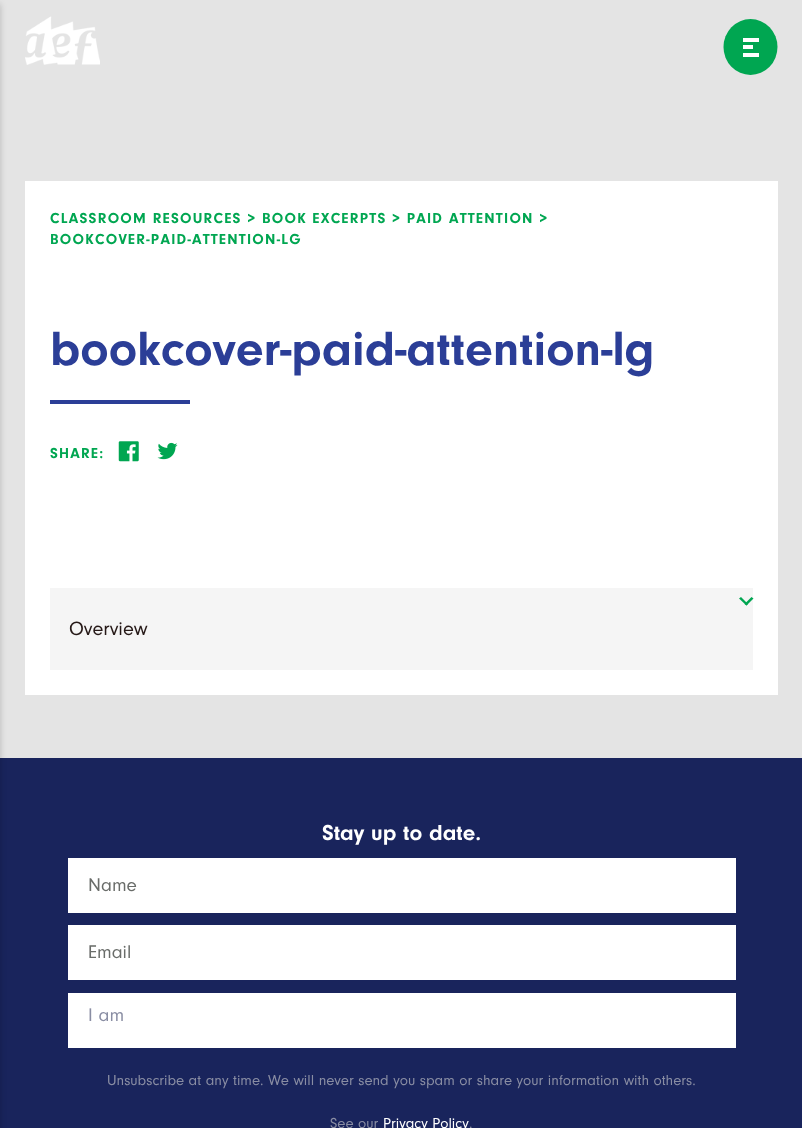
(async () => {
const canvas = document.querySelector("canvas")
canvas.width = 802
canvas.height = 1128
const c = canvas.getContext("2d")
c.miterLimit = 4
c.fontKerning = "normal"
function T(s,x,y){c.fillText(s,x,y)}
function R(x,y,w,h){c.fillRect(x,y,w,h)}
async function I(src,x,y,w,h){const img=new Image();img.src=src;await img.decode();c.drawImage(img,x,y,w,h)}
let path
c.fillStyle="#e4e4e4"
R(0,0,802,1128)
c.fillStyle="#19245c"
R(0,758,802,370)
c.fillStyle="#00000033"
c.filter="blur(3px)"
c.beginPath()
c.rect(-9,4,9,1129)
c.fill()
c.filter="none"
await I("1.png",25,16,75,49)
c.fillStyle="#00a651"
c.beginPath()
c.ellipse(750.5,47,27,28,0,0,7)
c.fill()
c.fillStyle="#fff"
R(743,53,16,4)
R(743,38,16,4)
R(743,45,10,4)
R(25,181,753,514)
c.letterSpacing="1.25px"
c.font="15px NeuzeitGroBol"
c.fillStyle="#00a651"
T("CLASSROOM RESOURCES > BOOK EXCERPTS > PAID ATTENTION >",50,223)
T("BOOKCOVER-PAID-ATTENTION-LG",50,244)
c.letterSpacing="0px"
c.font="50px NeuzeitGroBol"
c.fillStyle="#2b3e97"
T("bookcover-paid-attention-lg",50,365)
R(50,400,140,4)
c.letterSpacing="1.25px"
c.font="15px NeuzeitGroBol"
c.fillStyle="#00a651"
T("SHARE:",50,458)
await I("2.png",118,441,21,21)
await I("3.png",157,442,21,18)
c.fillStyle="#f5f5f5"
R(50,588,703,82)
c.fillStyle="#00a651"
path = new Path2D("M744.5 604l7-7l2 1.5l-7 7z")
c.fill(path)
path = new Path2D("M739 598.5l2-1.5l7 7l-1.5 1.5z")
c.fill(path)
c.letterSpacing="0px"
c.font="20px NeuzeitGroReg"
c.fillStyle="#261917"
T("Overview",69,635)
c.font="22.5px NeuzeitGroBol"
c.fillStyle="#fff"
T("Stay up to date.",322,840)
R(68,858,668,55)
c.font="19px NeuzeitGroReg"
c.fillStyle="#696c69"
T("Name",88,891)
c.fillStyle="#fff"
R(68,925,668,55)
c.fillStyle="#696c69"
T("Email",88,958)
c.fillStyle="#fff"
R(68,993,668,55)
c.fillStyle="#898da3"
T("I am",88,1021)
c.font="15px NeuzeitGroReg"
T("Unsubscribe at any time. We will never send you spam or share your information with others.",107,1085)
T("See our",330,1128)
c.fillStyle="#fff"
T("Privacy Policy",383,1128)
c.fillStyle="#898da3"
T(".",469,1128)
})()
